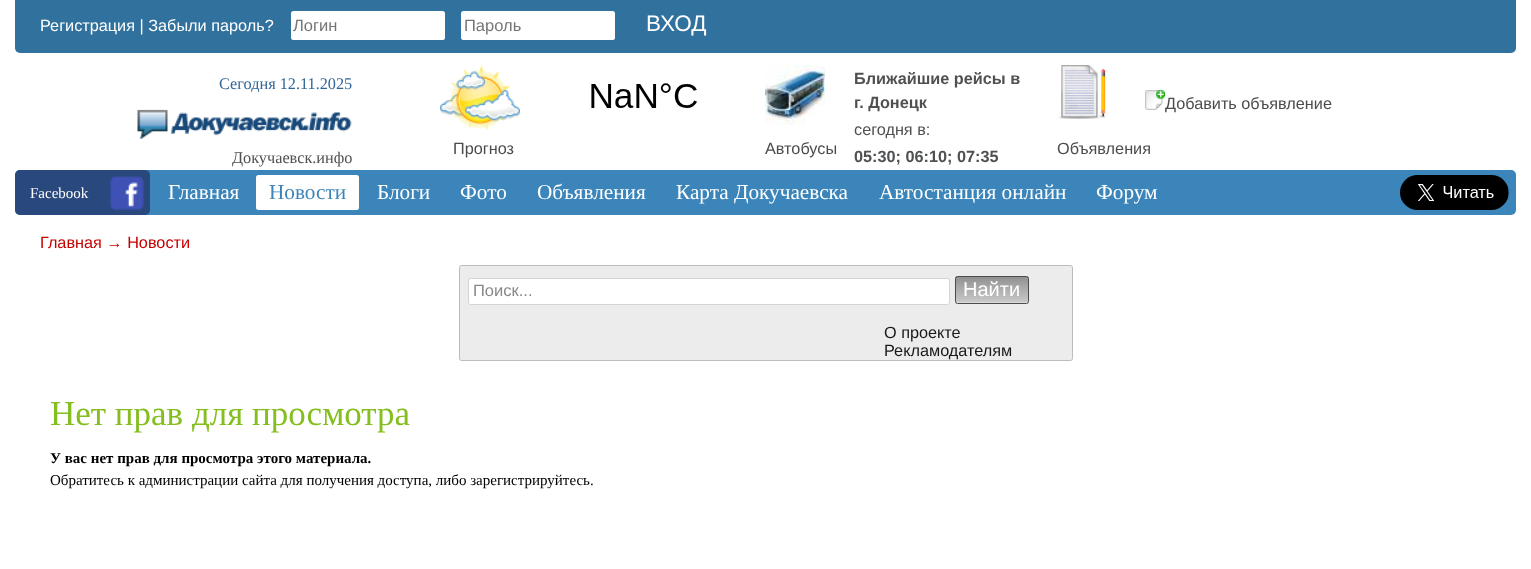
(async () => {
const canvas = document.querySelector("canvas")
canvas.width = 1531
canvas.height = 569
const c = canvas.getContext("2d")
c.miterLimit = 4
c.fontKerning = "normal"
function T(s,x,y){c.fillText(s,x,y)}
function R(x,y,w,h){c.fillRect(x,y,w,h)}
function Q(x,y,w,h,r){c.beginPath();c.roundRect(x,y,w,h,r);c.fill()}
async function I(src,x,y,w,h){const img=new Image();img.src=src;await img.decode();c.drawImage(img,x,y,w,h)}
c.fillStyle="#fff"
R(0,0,1531,569)
c.fillStyle="#31719e"
c.beginPath()
c.roundRect(15,0,1501,53,[0,0,5,5])
c.fill()
c.font="16.25px Liberation Sans"
c.fillStyle="#fff"
T("Регистрация | Забыли пароль?",40,31)
Q(291,11,154,29,2.5)
c.font="16.5px Liberation Sans"
c.fillStyle="#757575"
T("Логин",293,31)
c.fillStyle="#fff"
Q(461,11,154,29,2.5)
c.fillStyle="#757575"
T("Пароль",464,31)
c.font="22.5px Liberation Sans"
c.fillStyle="#fff"
T("ВХОД",646,31)
c.font="16.25px Liberation Serif"
c.fillStyle="#369"
T("Сегодня 12.11.2025",219,89)
await I("1.png",137,109,215,30)
c.fillStyle="#4e5052"
T("Докучаевск.инфо",232,163)
await I("2.png",591,83,106,25)
await I("3.png",440,65,80,65)
c.font="16.25px Liberation Sans"
c.fillStyle="#4c4c4c"
T("Прогноз",453,154)
await I("4.png",765,65,60,60)
T("Автобусы",765,154)
c.font="bold 16.25px Liberation Sans"
c.fillStyle="#4e5052"
T("Ближайшие рейсы в",854,84)
T("г. Донецк",854,108)
c.font="16.25px Liberation Sans"
T("сегодня в:",854,135)
c.font="bold 16.25px Liberation Sans"
T("05:30; 06:10; 07:35",854,162)
await I("5.png",1145,90,20,20)
c.font="16.25px Liberation Sans"
c.fillStyle="#4c4c4c"
T("Добавить объявление",1165,109)
await I("6.png",1058,65,48,54)
T("Объявления",1057,154)
c.fillStyle="#3c85ba"
Q(15,170,1501,45,5)
c.fillStyle="#29487d"
Q(15,170,135,45,5)
c.font="15px Liberation Serif"
c.fillStyle="#fff"
T("Facebook",30,198)
await I("7.png",110,176,34,35)
c.font="21.25px Liberation Serif"
T("Главная",168,199)
Q(256,175,103,35,2.5)
c.fillStyle="#3c85ba"
T("Новости",269,199)
c.fillStyle="#fff"
T("Блоги",377,199)
T("Фото",460,199)
T("Объявления",537,199)
T("Карта Докучаевска",676,199)
T("Автостанция онлайн",879,199)
T("Форум",1096,199)
await I("8.png",1400,175,109,35)
c.font="16.25px Liberation Sans"
c.fillStyle="#c60000"
T("Главная → Новости",40,248)
c.fillStyle="#ececec"
c.beginPath()
c.roundRect(459.5,265.5,613,95,2)
c.fill()
c.strokeStyle="#bcbcbc"
c.stroke()
c.fillStyle="#fff"
c.beginPath()
c.roundRect(468.5,278.5,481,26,2)
c.fill()
c.strokeStyle="#d4d4d4"
c.stroke()
c.font="16.5px Liberation Sans"
c.fillStyle="#888"
T("Поиск...",473,296)
await I("9.png",955,276,74,27)
c.beginPath()
c.roundRect(955.5,276.5,73,27,2)
c.strokeStyle="#4c4c4c"
c.stroke()
c.font="20px Liberation Sans"
c.fillStyle="#fff"
T("Найти",963,296)
c.font="16.25px Liberation Sans"
c.fillStyle="#191919"
T("О проекте",884,338)
T("Рекламодателям",884,356)
c.font="35px Liberation Serif"
c.fillStyle="#84be1f"
T("Нет прав для просмотра",50,425)
c.font="bold 15px Liberation Serif"
c.fillStyle="#000"
T("У вас нет прав для просмотра этого материала.",50,463)
c.font="15px Liberation Serif"
T("Обратитесь к администрации сайта для получения доступа, либо зарегистрируйтесь.",50,485)
})()
